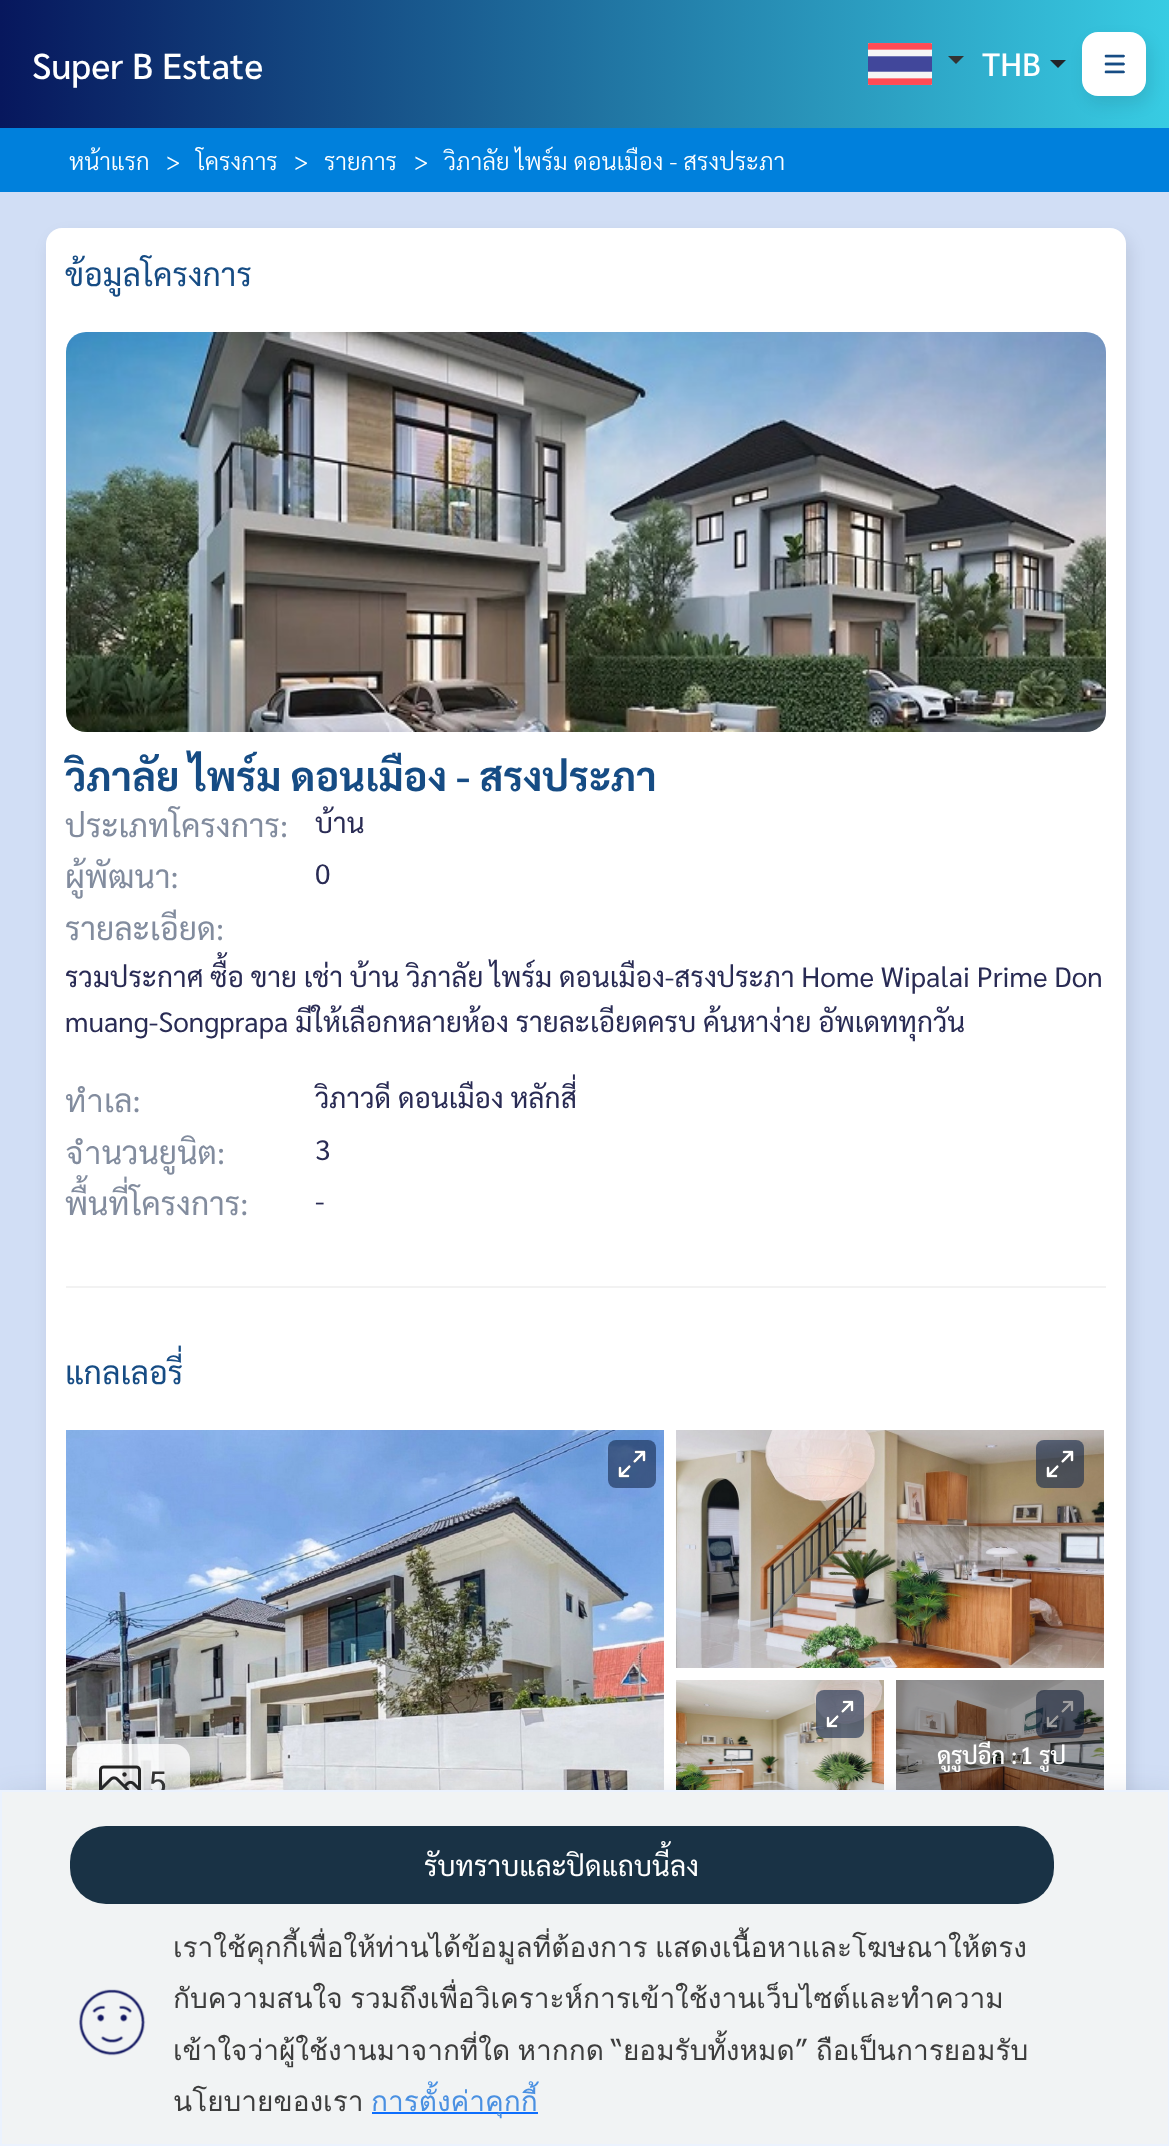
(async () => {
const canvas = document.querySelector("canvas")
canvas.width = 1169
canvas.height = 2146
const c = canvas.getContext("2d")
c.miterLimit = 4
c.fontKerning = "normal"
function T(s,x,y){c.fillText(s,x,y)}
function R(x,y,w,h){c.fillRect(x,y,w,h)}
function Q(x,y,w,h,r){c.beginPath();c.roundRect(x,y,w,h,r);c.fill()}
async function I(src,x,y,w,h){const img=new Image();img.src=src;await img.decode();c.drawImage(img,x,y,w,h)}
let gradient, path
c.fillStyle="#d1def5"
R(0,0,1169,2146)
gradient = c.createLinearGradient(0,64,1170,64)
gradient.addColorStop(0,"#07175d")
gradient.addColorStop(1,"#38cce3")
c.fillStyle = gradient
R(0,0,1169,128)
c.font="500 36px Sarabun"
c.fillStyle="#fff"
T("Super B Estate",32,79)
await I("1.png",868,43,64,42)
c.fillStyle="#333"
path = new Path2D("M948 56h16l-8 8z")
c.fill(path)
c.font="500 32px Sarabun"
c.fillStyle="#fff"
T("THB",982,76)
c.fillStyle="#0080dc"
R(0,128,1169,64)
c.fillStyle="#0a0a101a"
c.filter="blur(8px)"
c.beginPath()
c.roundRect(1086,40,64,64,16)
c.fill()
c.filter="none"
c.fillStyle="#212529"
path = new Path2D("M1050 60h16l-8 8z")
c.fill(path)
c.fillStyle="#fff"
Q(1082,32,64,64,16)
await I("2.png",1104,54,21,20)
c.font="300 24px Sarabun"
T("หน้าแรก",69,170)
T(">",166,170)
T("โครงการ",196,170)
T(">",294,170)
T("รายการ",324,170)
T(">",414,170)
T("วิภาลัย ไพร์ม ดอนเมือง - สรงประภา",444,170)
c.fillStyle="#0a0a101a"
c.filter="blur(8px)"
c.beginPath()
c.roundRect(50,236,1080,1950,16)
c.fill()
c.filter="none"
c.fillStyle="#fff"
Q(46,228,1080,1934,16)
c.font="32px Sarabun"
c.fillStyle="#164c84"
T("ข้อมูลโครงการ",65,286)
c.fillStyle="#f2f2f2"
R(66,1286,1040,2)
await I("3.png",66,332,1040,400)
c.font="bold 40px Sarabun"
c.fillStyle="#164c84"
T("วิภาลัย ไพร์ม ดอนเมือง - สรงประภา",65,791)
c.font="32px Sarabun"
c.fillStyle="#828c9e"
T("ประเภทโครงการ:",65,837)
c.font="28px Sarabun"
c.fillStyle="#292b54"
T("บ้าน",315,833)
c.font="32px Sarabun"
c.fillStyle="#828c9e"
T("ผู้พัฒนา:",65,888)
c.font="28px Sarabun"
c.fillStyle="#292b54"
T("0",315,884)
c.font="32px Sarabun"
c.fillStyle="#828c9e"
T("รายละเอียด:",65,940)
c.font="28px Sarabun"
c.fillStyle="#292b54"
T("รวมประกาศ ซื้อ ขาย เช่า บ้าน วิภาลัย ไพร์ม ดอนเมือง-สรงประภา Home Wipalai Prime Don",65,987)
T("muang-Songprapa มีให้เลือกหลายห้อง รายละเอียดครบ ค้นหาง่าย อัพเดททุกวัน",65,1032)
c.font="32px Sarabun"
c.fillStyle="#828c9e"
T("ทำเล:",65,1112)
c.font="28px Sarabun"
c.fillStyle="#292b54"
T("วิภาวดี ดอนเมือง หลักสี่",315,1108)
c.font="32px Sarabun"
c.fillStyle="#828c9e"
T("จำนวนยูนิต:",65,1164)
c.font="28px Sarabun"
c.fillStyle="#292b54"
T("3",315,1160)
c.font="32px Sarabun"
c.fillStyle="#828c9e"
T("พื้นที่โครงการ:",65,1215)
c.font="28px Sarabun"
c.fillStyle="#292b54"
T("-",315,1211)
c.font="32px Sarabun"
c.fillStyle="#164c84"
T("แกลเลอรี่",65,1384)
await I("4.png",676,1430,428,238)
await I("5.png",1036,1440,48,48)
await I("6.png",676,1680,208,110)
await I("7.png",816,1690,48,48)
await I("8.png",896,1680,208,110)
await I("9.png",1036,1690,48,48)
c.letterSpacing="-0.5px"
c.wordSpacing="1px"
c.font="500 24px Sarabun"
c.fillStyle="#fff"
T("ดูรูปอีก :",937,1764)
T("1 รูป",1020,1764)
await I("10.png",66,1430,598,360)
await I("11.png",608,1440,48,48)
c.fillStyle="#ffffffbf"
Q(72,1744,118,76,16)
await I("12.png",99,1765,42,25)
c.letterSpacing="0px"
c.wordSpacing="0px"
c.font="32px Sarabun"
c.fillStyle="#333"
T("5",149,1794)
c.fillStyle="#384b6c33"
c.filter="blur(16px)"
c.beginPath()
c.rect(4,1798,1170,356)
c.fill()
c.filter="none"
c.fillStyle="#f1f3f4"
c.beginPath()
c.rect(1,1791,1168,354)
c.fill()
c.strokeStyle="#ebf2fe"
c.lineWidth=2
c.stroke()
c.fillStyle="#193245"
Q(70,1826,984,78,36)
c.font="28px Sarabun"
c.fillStyle="#fff"
T("รับทราบและปิดแถบนี้ลง",424,1876)
await I("13.png",79,1989,67,67)
c.wordSpacing="-2px"
c.font="28px Loma"
c.fillStyle="#3d3d3d"
T("เราใช้คุกกี้เพื่อให้ท่านได้ข้อมูลที่ต้องการ แสดงเนื้อหาและโฆษณาให้ตรง",173,1957)
c.wordSpacing="0px"
T("กับความสนใจ",173,2008)
T("รวมถึงเพื่อวิเคราะห์การเข้าใช้งานเว็บไซต์และทำความ",350,2008)
c.wordSpacing="-2px"
T("เข้าใจว่าผู้ใช้งานมาจากที่ใด หากกด “ยอมรับทั้งหมด” ถือเป็นการยอมรับ",173,2060)
c.wordSpacing="0px"
T("นโยบายของเรา",173,2111)
c.fillStyle="#0d6efd"
R(372,2112,166,2)
c.fillStyle="#4a90e2"
T("การตั้งค่าคุกกี้",371,2111)
})()
